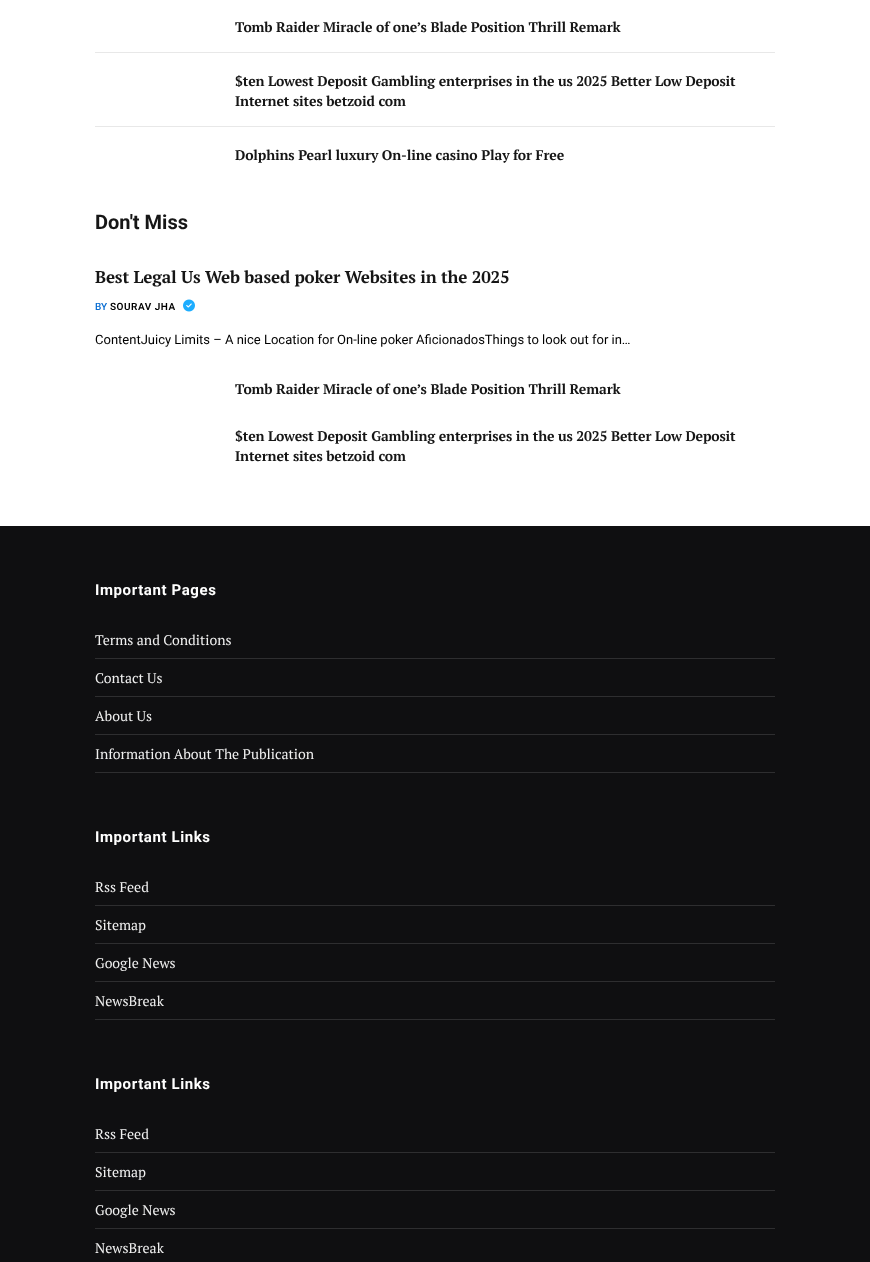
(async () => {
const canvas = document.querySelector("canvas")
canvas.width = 870
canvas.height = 1262
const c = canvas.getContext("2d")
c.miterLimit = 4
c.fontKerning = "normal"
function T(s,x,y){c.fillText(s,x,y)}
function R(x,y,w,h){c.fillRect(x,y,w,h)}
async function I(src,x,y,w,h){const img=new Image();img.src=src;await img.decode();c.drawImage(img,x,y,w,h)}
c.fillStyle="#fff"
R(0,0,870,1262)
c.letterSpacing="-0.15px"
c.font="bold 14px PT Serif"
c.fillStyle="#161616"
T("Tomb Raider Miracle of one’s Blade Position Thrill Remark",235,32)
c.fillStyle="#e8e8e8"
R(95,52,680,1)
c.fillStyle="#161616"
T("$ten Lowest Deposit Gambling enterprises in the us 2025 Better Low Deposit",235,86)
T("Internet sites betzoid com",235,106)
c.fillStyle="#e8e8e8"
R(95,126,680,1)
c.fillStyle="#161616"
T("Dolphins Pearl luxury On-line casino Play for Free",235,160)
c.letterSpacing="0px"
c.font="bold 20px Roboto"
T("Don't Miss",95,229)
c.letterSpacing="-0.15px"
c.font="bold 17px PT Serif"
T("Best Legal Us Web based poker Websites in the 2025",95,283)
c.letterSpacing="0px"
c.font="500 10px Roboto"
c.fillStyle="#096dd2"
T("BY",95,310)
c.letterSpacing="0.5px"
c.font="600 10px Roboto"
c.fillStyle="#000"
T("SOURAV JHA",110,310)
await I("1.png",183,299,12,13)
c.letterSpacing="0px"
c.font="13px Roboto"
T("ContentJuicy Limits – A nice Location for On-line poker AficionadosThings to look out for in…",95,344)
c.letterSpacing="-0.15px"
c.font="bold 14px PT Serif"
c.fillStyle="#161616"
T("Tomb Raider Miracle of one’s Blade Position Thrill Remark",235,394)
T("$ten Lowest Deposit Gambling enterprises in the us 2025 Better Low Deposit",235,441)
T("Internet sites betzoid com",235,461)
c.fillStyle="#0f0f11"
R(0,526,870,736)
c.letterSpacing="0.6px"
c.font="bold 15px Roboto"
c.fillStyle="#fff"
T("Important Pages",95,595)
c.fillStyle="#2e2e30"
R(95,658,680,1)
c.letterSpacing="0px"
c.font="14px PT Serif"
c.fillStyle="#f0f0f0"
T("Terms and Conditions",95,645)
c.fillStyle="#2e2e30"
R(95,696,680,1)
c.fillStyle="#f0f0f0"
T("Contact Us",95,683)
c.fillStyle="#2e2e30"
R(95,734,680,1)
c.fillStyle="#f0f0f0"
T("About Us",95,721)
c.fillStyle="#2e2e30"
R(95,772,680,1)
c.fillStyle="#f0f0f0"
T("Information About The Publication",95,759)
c.letterSpacing="0.6px"
c.font="bold 15px Roboto"
c.fillStyle="#fff"
T("Important Links",95,842)
c.fillStyle="#2e2e30"
R(95,905,680,1)
c.letterSpacing="0px"
c.font="14px PT Serif"
c.fillStyle="#f0f0f0"
T("Rss Feed",95,892)
c.fillStyle="#2e2e30"
R(95,943,680,1)
c.fillStyle="#f0f0f0"
T("Sitemap",95,930)
c.fillStyle="#2e2e30"
R(95,981,680,1)
c.fillStyle="#f0f0f0"
T("Google News",95,968)
c.fillStyle="#2e2e30"
R(95,1019,680,1)
c.fillStyle="#f0f0f0"
T("NewsBreak",95,1006)
c.letterSpacing="0.6px"
c.font="bold 15px Roboto"
c.fillStyle="#fff"
T("Important Links",95,1089)
c.fillStyle="#2e2e30"
R(95,1152,680,1)
c.letterSpacing="0px"
c.font="14px PT Serif"
c.fillStyle="#f0f0f0"
T("Rss Feed",95,1139)
c.fillStyle="#2e2e30"
R(95,1190,680,1)
c.fillStyle="#f0f0f0"
T("Sitemap",95,1177)
c.fillStyle="#2e2e30"
R(95,1228,680,1)
c.fillStyle="#f0f0f0"
T("Google News",95,1215)
T("NewsBreak",95,1253)
})()
